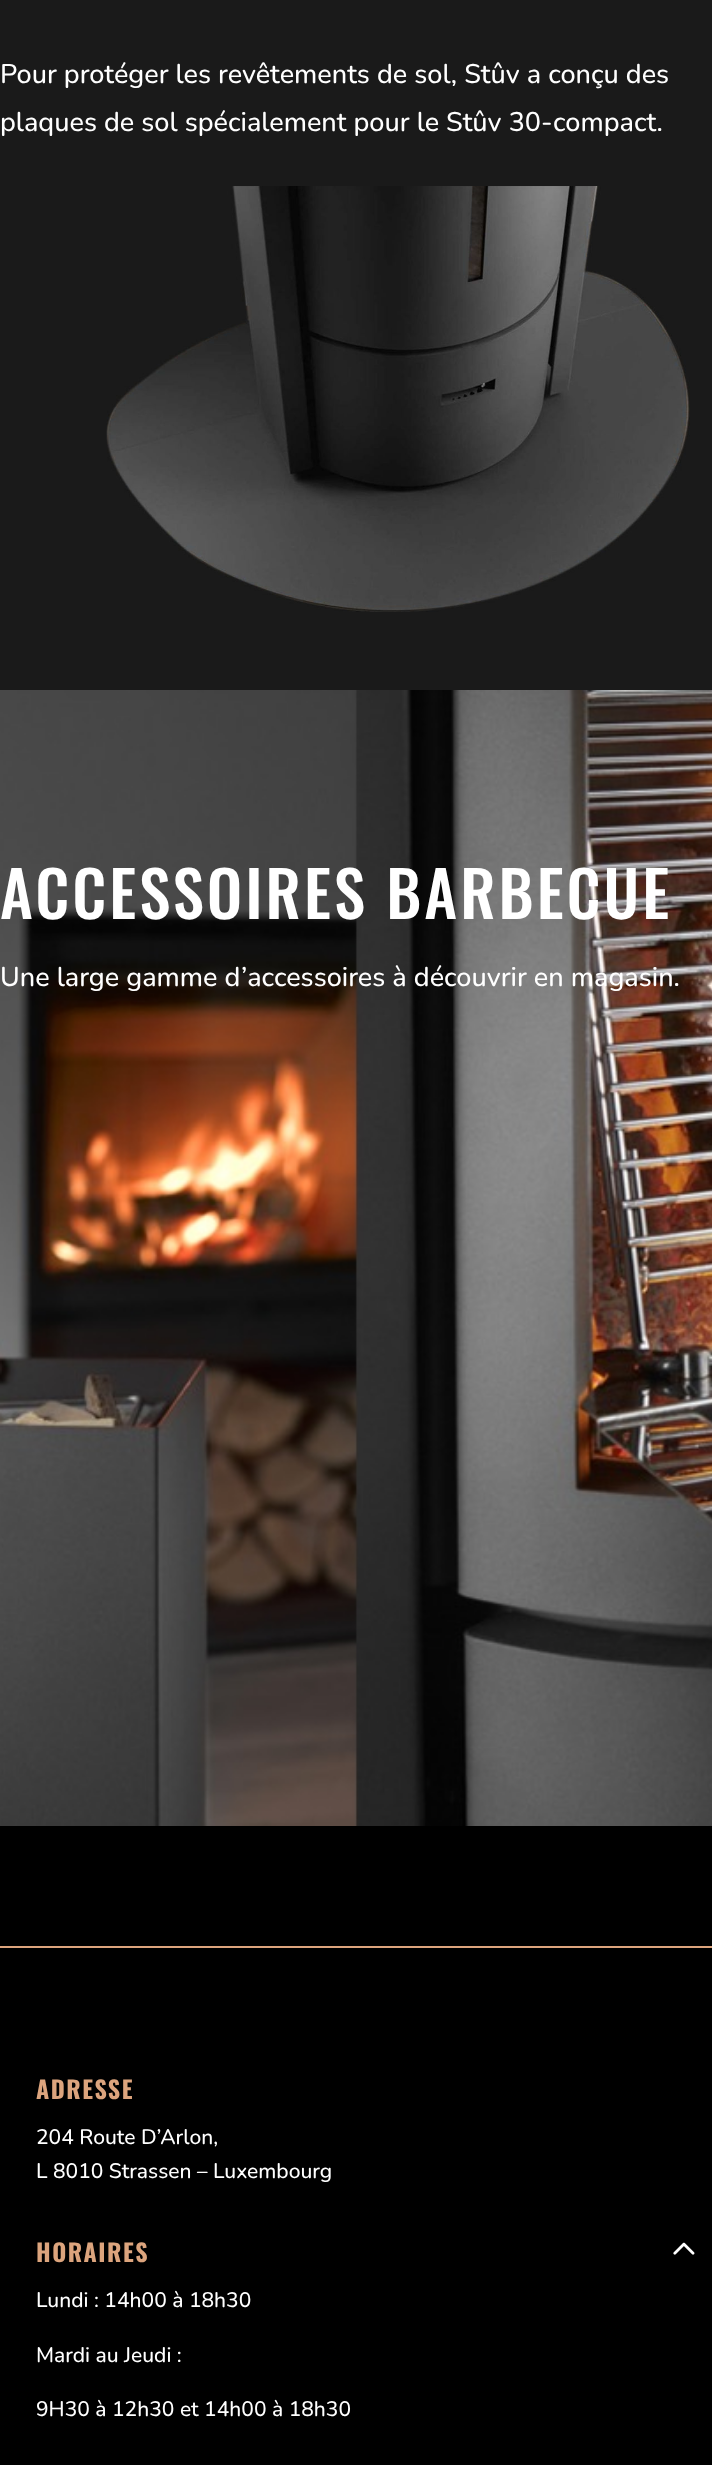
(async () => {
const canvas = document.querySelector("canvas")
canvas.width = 712
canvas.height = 2465
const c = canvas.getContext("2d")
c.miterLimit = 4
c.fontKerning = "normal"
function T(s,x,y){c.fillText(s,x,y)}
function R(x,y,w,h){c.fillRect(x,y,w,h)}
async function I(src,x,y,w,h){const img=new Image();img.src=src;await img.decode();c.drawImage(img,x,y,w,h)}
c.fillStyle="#1a1a1a"
R(0,0,712,2465)
c.font="500 27px Nunito"
c.fillStyle="#fff"
T("Pour protéger les revêtements de sol, Stûv a conçu des",0,83)
T("plaques de sol spécialement pour le Stûv 30-compact.",0,131)
await I("1.png",106,186,584,426)
await I("2.png",0,690,712,1136)
c.letterSpacing="3px"
c.font="500 63px Oswald"
T("ACCESSOIRES BARBECUE",0,919)
c.letterSpacing="0px"
c.font="500 27px Nunito"
T("Une large gamme d’accessoires à découvrir en magasin.",0,986)
c.fillStyle="#000"
R(0,1826,712,639)
c.fillStyle="#dca47d"
R(0,1946,712,2)
c.letterSpacing="1.5px"
c.font="bold 24px Oswald"
T("ADRESSE",36,2099)
c.letterSpacing="0px"
c.font="500 21px Nunito"
c.fillStyle="#fff"
T("204 Route D’Arlon,",36,2144)
T("L 8010 Strassen – Luxembourg",36,2178)
c.letterSpacing="1.5px"
c.font="bold 24px Oswald"
c.fillStyle="#dca47d"
T("HORAIRES",36,2262)
c.letterSpacing="0px"
c.font="500 21px Nunito"
c.fillStyle="#fff"
T("Lundi : 14h00 à 18h30",36,2307)
T("Mardi au Jeudi :",36,2362)
T("9H30 à 12h30 et 14h00 à 18h30",36,2416)
await I("3.png",673,2242,22,13)
})()
